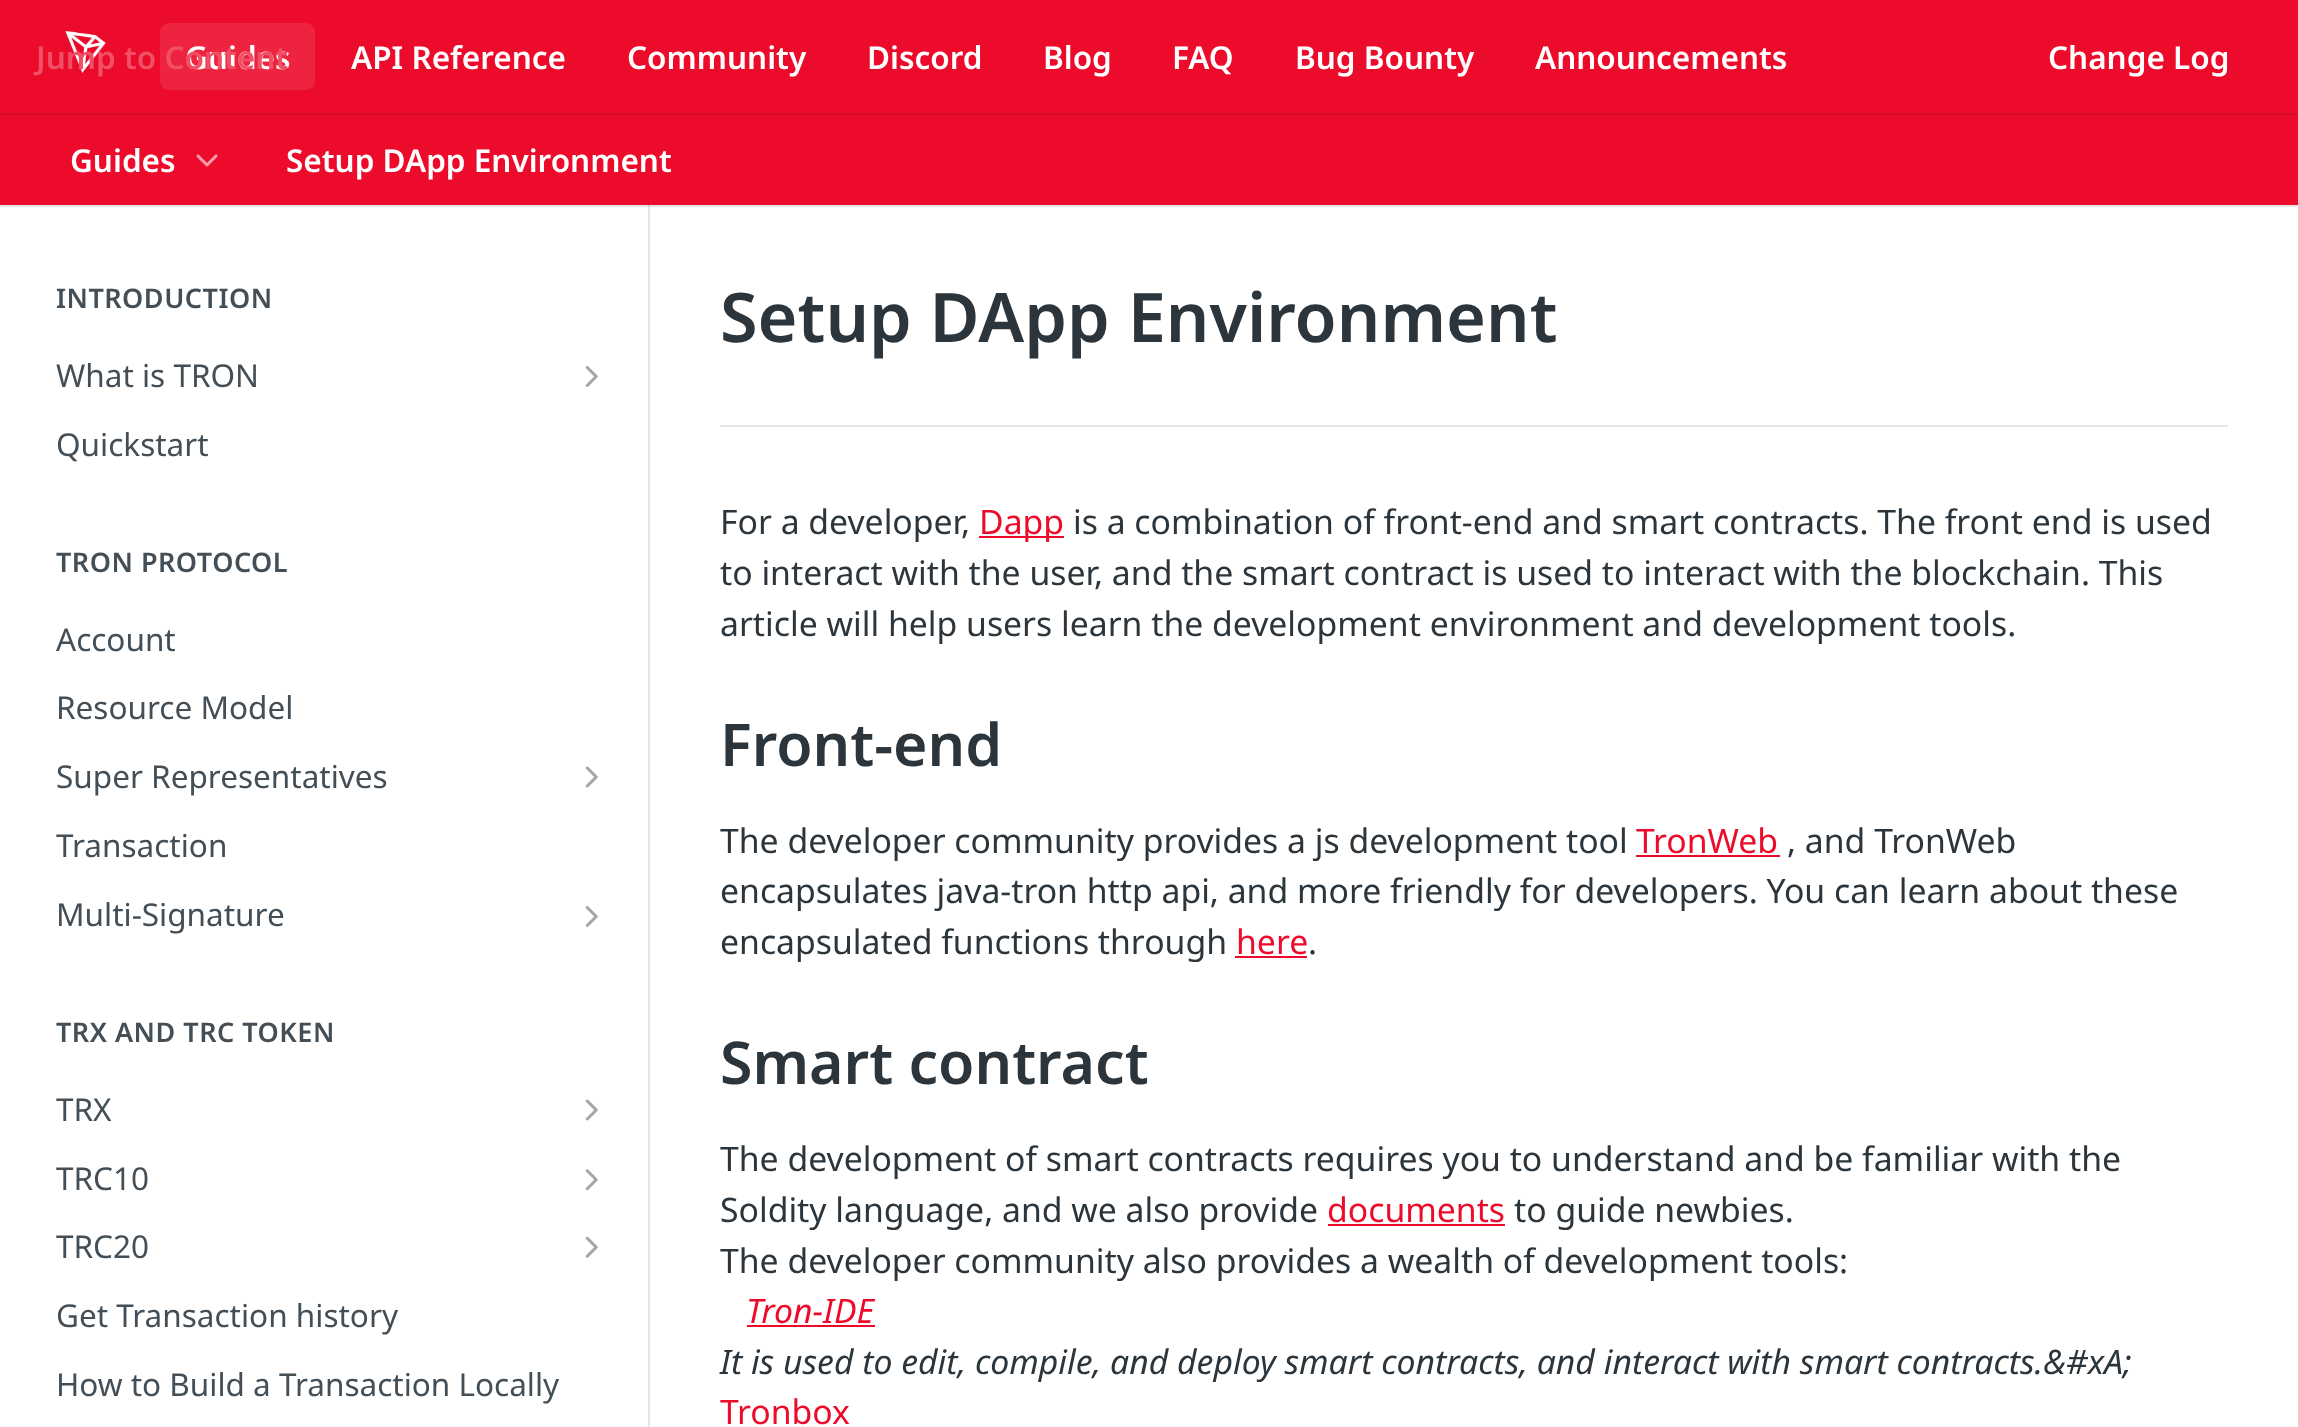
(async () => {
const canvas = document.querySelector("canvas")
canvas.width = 2298
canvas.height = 1427
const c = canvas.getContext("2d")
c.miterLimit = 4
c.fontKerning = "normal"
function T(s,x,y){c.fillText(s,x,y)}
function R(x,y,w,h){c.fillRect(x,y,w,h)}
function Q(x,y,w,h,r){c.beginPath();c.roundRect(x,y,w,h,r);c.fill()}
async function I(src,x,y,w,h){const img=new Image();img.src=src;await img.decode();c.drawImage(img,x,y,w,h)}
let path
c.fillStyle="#fff"
R(0,0,2298,1427)
c.fillStyle="#e6e6e6"
path = new Path2D("M2 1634h648v-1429h-2v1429z")
c.fill(path)
c.fillStyle="#0000001a"
path = new Path2D("M0 205v2h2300v-205v203z")
c.fill(path)
c.fillStyle="#ec0b2a"
R(0,0,2298,205)
c.fillStyle="#d40a26"
R(0,113,2298,2)
await I("1.png",65,31,41,42)
c.fillStyle="#ee233f"
Q(160,23,155,67,9)
c.font="600 31.5px Noto Sans"
c.fillStyle="#fff"
T("Guides",185,69)
c.fillStyle="#f14f65"
T("Jump to Content",36,69)
c.fillStyle="#fff"
T("API Reference",351,69)
T("Community",627,69)
T("Discord",867,69)
T("Blog",1043,69)
T("FAQ",1172,69)
T("Bug Bounty",1295,69)
T("Announcements",1535,69)
T("Change Log",2048,69)
T("Guides",70,172)
await I("2.png",196,154,22,13)
T("Setup DApp Environment",286,172)
c.letterSpacing="0.5px"
c.font="600 27px Noto Sans"
c.fillStyle="#434e56"
T("INTRODUCTION",56,308)
c.letterSpacing="0px"
c.font="31.5px Noto Sans"
T("What is TRON",56,387)
await I("3.png",585,366,13,21)
T("Quickstart",56,456)
c.letterSpacing="0.5px"
c.font="600 27px Noto Sans"
T("TRON PROTOCOL",56,572)
c.letterSpacing="0px"
c.font="31.5px Noto Sans"
T("Account",56,651)
T("Resource Model",56,719)
T("Super Representatives",56,788)
await I("4.png",585,766,13,22)
T("Transaction",56,857)
T("Multi-Signature",56,926)
await I("3.png",585,906,13,21)
c.letterSpacing="0.5px"
c.font="600 27px Noto Sans"
T("TRX AND TRC TOKEN",56,1042)
c.letterSpacing="0px"
c.font="31.5px Noto Sans"
T("TRX",56,1121)
await I("4.png",585,1099,13,22)
T("TRC10",56,1190)
await I("5.png",585,1169,13,22)
T("TRC20",56,1258)
await I("6.png",585,1236,13,22)
T("Get Transaction history",56,1327)
T("How to Build a Transaction Locally",56,1396)
c.fillStyle="#e6e6e6"
R(720,425,1508,2)
c.font="600 68.4px Noto Sans"
c.fillStyle="#2b353b"
T("Setup DApp Environment",720,342)
c.font="33.75px Noto Sans"
T("For a developer,",720,534)
c.fillStyle="#ec0b2a"
R(979,536,85,2)
T("Dapp",979,534)
c.fillStyle="#2b353b"
T("is a combination of front-end and smart contracts. The front end is used",1073,534)
T("to interact with the user, and the smart contract is used to interact with the blockchain. This",720,585)
T("article will help users learn the development environment and development tools.",720,636)
c.font="600 59px Noto Sans"
T("Front-end",720,766)
c.font="33.75px Noto Sans"
T("The developer community provides a js development tool",720,853)
c.fillStyle="#ec0b2a"
T("TronWeb",1636,853)
R(1636,855,144,2)
c.fillStyle="#2b353b"
T(", and TronWeb",1787,853)
T("encapsulates java-tron http api, and more friendly for developers. You can learn about these",720,903)
T("encapsulated functions through",720,954)
c.fillStyle="#ec0b2a"
T("here",1236,954)
R(1235,956,72,2)
c.fillStyle="#2b353b"
T(".",1308,954)
c.font="600 59px Noto Sans"
T("Smart contract",720,1084)
c.font="33.75px Noto Sans"
T("The development of smart contracts requires you to understand and be familiar with the",720,1171)
T("Soldity language, and we also provide",720,1222)
c.fillStyle="#ec0b2a"
T("documents",1327,1222)
R(1328,1224,177,2)
c.fillStyle="#2b353b"
T("to guide newbies.",1514,1222)
T("The developer community also provides a wealth of development tools:",720,1273)
c.font="italic 33.75px Noto Sans"
c.fillStyle="#ec0b2a"
T("Tron-IDE",746,1323)
R(747,1325,128,2)
c.fillStyle="#2b353b"
T("It is used to edit, compile, and deploy smart contracts, and interact with smart contracts.&#xA;",720,1374)
c.font="33.75px Noto Sans"
c.fillStyle="#ec0b2a"
T("Tronbox",720,1424)
})()
